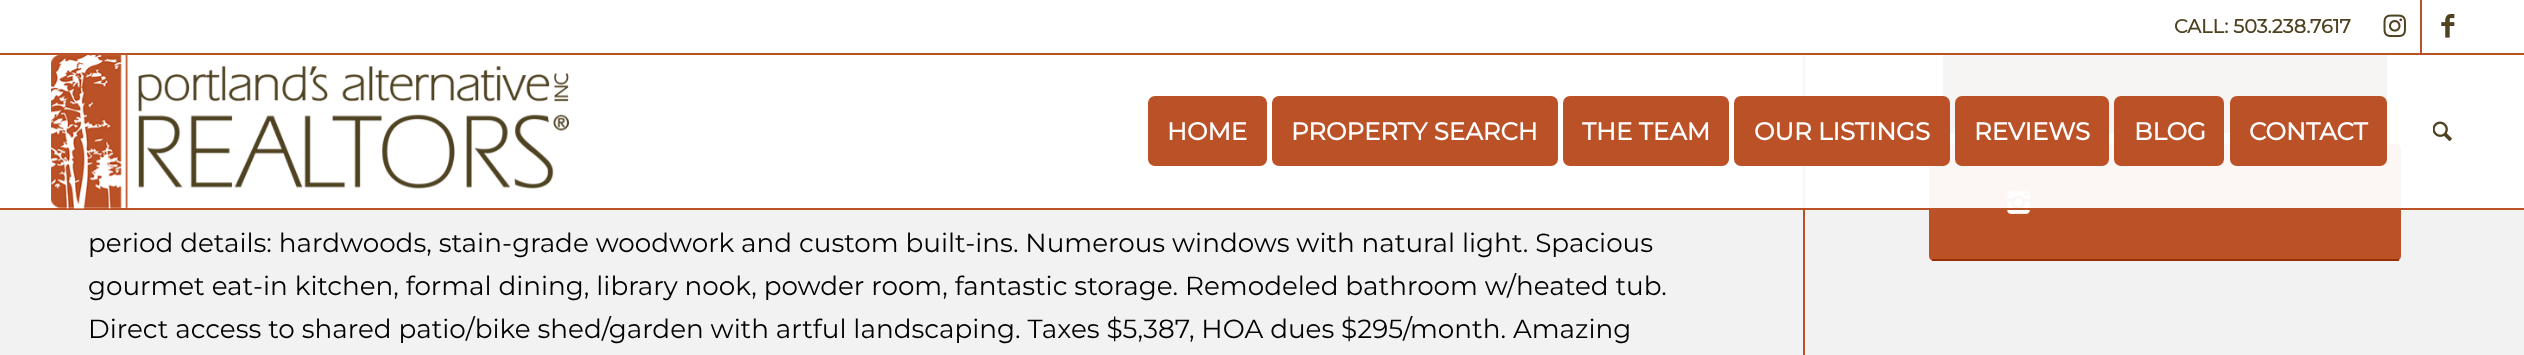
(async () => {
const canvas = document.querySelector("canvas")
canvas.width = 2524
canvas.height = 355
const c = canvas.getContext("2d")
c.miterLimit = 4
c.fontKerning = "normal"
function T(s,x,y){c.fillText(s,x,y)}
function R(x,y,w,h){c.fillRect(x,y,w,h)}
function Q(x,y,w,h,r){c.beginPath();c.roundRect(x,y,w,h,r);c.fill()}
async function I(src,x,y,w,h){const img=new Image();img.src=src;await img.decode();c.drawImage(img,x,y,w,h)}
c.fillStyle="#f2f2f2"
R(0,0,2524,355)
c.fillStyle="#fff"
R(0,0,2524,53)
c.fillStyle="#bb5127"
R(0,53,2524,2)
c.font="bold 19.25px Montserrat"
c.fillStyle="#4e4221"
T("CALL: 503.238.7617",2174,33)
c.fillStyle="#bb5127"
R(2420,0,2,53)
await I("1.png",2383,14,23,24)
await I("2.png",2441,14,14,24)
c.fillStyle="#4e4221"
R(1943,55,444,76)
R(1946,131,284,2)
c.fillStyle="#bb5127"
Q(1929,144,472,117,5)
await I("5.png",2007,191,23,23)
R(1803,55,2,300)
c.fillStyle="#fffffff2"
R(0,55,2524,153)
c.fillStyle="#bb5127"
R(0,208,2524,2)
await I("3.png",51,55,518,154)
c.beginPath()
c.roundRect(1150,98,115,66,5)
c.fill()
c.strokeStyle="#bb5127"
c.lineWidth=4
c.stroke()
c.font="bold 24.5px Montserrat"
c.fillStyle="#fff"
T("HOME",1167,140)
c.fillStyle="#bb5127"
c.beginPath()
c.roundRect(1274,98,282,66,5)
c.fill()
c.stroke()
c.fillStyle="#fff"
T("PROPERTY SEARCH",1291,140)
c.fillStyle="#bb5127"
c.beginPath()
c.roundRect(1565,98,162,66,5)
c.fill()
c.stroke()
c.fillStyle="#fff"
T("THE TEAM",1582,140)
c.fillStyle="#bb5127"
c.beginPath()
c.roundRect(1736,98,212,66,5)
c.fill()
c.stroke()
c.fillStyle="#fff"
T("OUR LISTINGS",1754,140)
c.fillStyle="#bb5127"
c.beginPath()
c.roundRect(1957,98,150,66,5)
c.fill()
c.stroke()
c.fillStyle="#fff"
T("REVIEWS",1974,140)
c.fillStyle="#bb5127"
c.beginPath()
c.roundRect(2116,98,106,66,5)
c.fill()
c.stroke()
c.fillStyle="#fff"
T("BLOG",2134,140)
c.fillStyle="#bb5127"
c.beginPath()
c.roundRect(2232,98,153,66,5)
c.fill()
c.stroke()
c.fillStyle="#fff"
T("CONTACT",2249,140)
await I("4.png",2433,121,19,20)
c.fillStyle="#993005"
R(1932,259,467,2)
c.font="100 26.25px Montserrat"
c.fillStyle="#000"
T("period details: hardwoods, stain-grade woodwork and custom built-ins. Numerous windows with natural light. Spacious",88,252)
T("gourmet eat-in kitchen, formal dining, library nook, powder room, fantastic storage. Remodeled bathroom w/heated tub.",88,295)
T("Direct access to shared patio/bike shed/garden with artful landscaping. Taxes $5,387, HOA dues $295/month. Amazing",88,338)
})()
